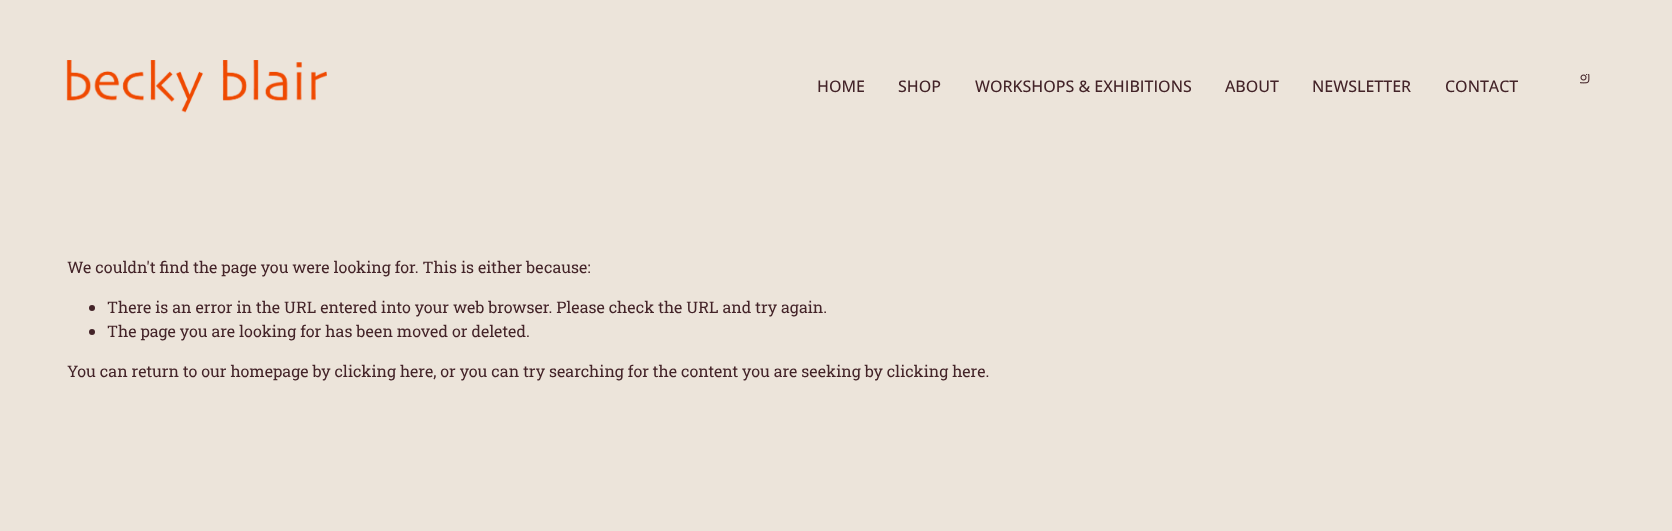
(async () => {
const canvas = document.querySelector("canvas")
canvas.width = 1672
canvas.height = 531
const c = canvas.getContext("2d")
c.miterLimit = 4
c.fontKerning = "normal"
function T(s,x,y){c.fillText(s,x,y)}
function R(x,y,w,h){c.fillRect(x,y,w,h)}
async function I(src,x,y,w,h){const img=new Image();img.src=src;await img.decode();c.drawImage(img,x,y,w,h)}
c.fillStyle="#ece4da"
R(0,0,1672,531)
await I("1.png",1580,74,10,10)
await I("2.png",66,60,261,53)
c.font="500 16px Open Sans"
c.fillStyle="#432328"
T("HOME",817,92)
T("SHOP",898,92)
T("WORKSHOPS & EXHIBITIONS",975,92)
T("ABOUT",1225,92)
T("NEWSLETTER",1312,92)
T("CONTACT",1445,92)
c.font="16px Roboto Slab"
T("We couldn't find the page you were looking for. This is either because:",67,273)
c.beginPath()
c.arc(92,308,3,0,7)
c.fill()
T("There is an error in the URL entered into your web browser. Please check the URL and try again.",107,313)
c.beginPath()
c.arc(92,332,3,0,7)
c.fill()
T("The page you are looking for has been moved or deleted.",107,337)
T("You can return to our homepage by clicking here, or you can try searching for the content you are seeking by clicking here.",67,377)
})()
